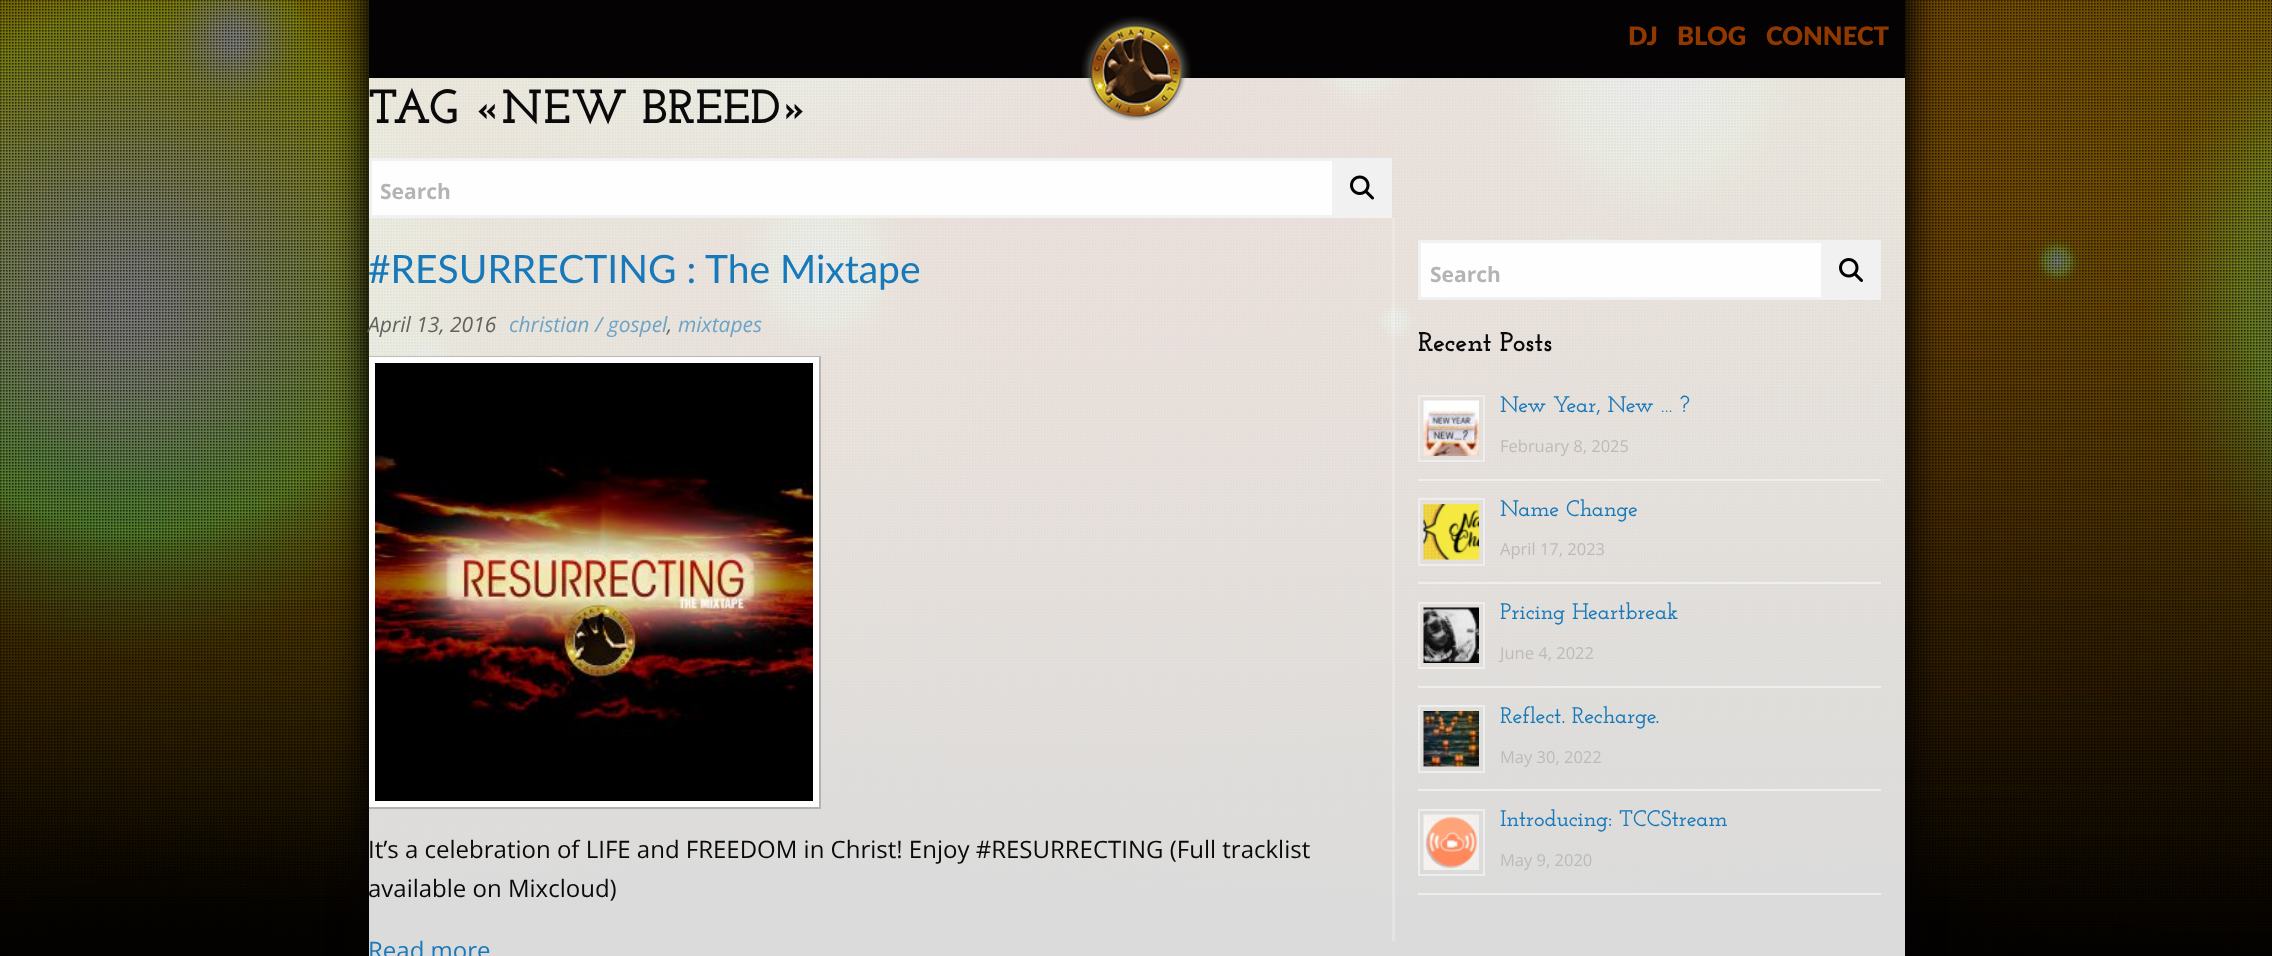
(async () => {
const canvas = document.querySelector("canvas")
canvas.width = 2272
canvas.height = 956
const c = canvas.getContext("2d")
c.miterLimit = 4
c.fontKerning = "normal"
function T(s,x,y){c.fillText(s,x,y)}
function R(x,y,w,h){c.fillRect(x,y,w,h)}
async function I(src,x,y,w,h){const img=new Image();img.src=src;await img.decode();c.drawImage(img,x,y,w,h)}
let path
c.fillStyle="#fff"
R(0,0,2272,956)
await I("1.png",0,0,2272,956)
await I("2.png",0,0,2272,956)
c.save()
path = new Path2D("M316 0h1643v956h-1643zm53 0h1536v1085h-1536z")
c.clip(path,"evenodd")
c.fillStyle="#040203"
c.filter="blur(15px)"
c.beginPath()
c.rect(362,-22,1551,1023)
c.fill()
c.filter="none"
c.restore()
c.fillStyle="#ffffffdb"
R(369,78,1536,878)
c.fillStyle="#040203"
R(369,0,1536,78)
await I("3.png",1081,16,110,105)
c.font="900 25.5px Lato"
c.fillStyle="#8f3801"
T("DJ",1628,45)
T("BLOG",1677,45)
T("CONNECT",1766,45)
c.font="bold 48px Josefin Slab"
c.fillStyle="#0a0a0a"
T("TAG «NEW BREED»",368,123)
c.fillStyle="#fefefe"
R(372,161,960,54)
c.strokeStyle="#f1f1f1"
c.lineWidth=3
c.strokeRect(370.5,159.5,1020,57)
c.font="bold 21px Open Sans"
c.fillStyle="#b5b4b4"
T("Search",380,199)
c.fillStyle="#f1f1f1"
R(1332,161,57,54)
await I("4.png",1350,175,24,25)
c.font="39px Lato"
c.fillStyle="#1779ba"
T("#RESURRECTING : The Mixtape",368,283)
c.font="italic 21px Open Sans"
c.fillStyle="#62625e"
T("April 13, 2016",368,332)
c.fillStyle="#6ba4c7"
T("christian / gospel",509,332)
c.fillStyle="#62625e"
T(",",667,332)
c.fillStyle="#6ba4c7"
T("mixtapes",678,332)
c.strokeStyle="#0a0a0a33"
c.lineWidth=2
c.strokeRect(369,357,451,451)
c.strokeStyle="#fefefe"
c.lineWidth=6
c.strokeRect(372,360,444,444)
await I("5.png",375,363,438,438)
c.font="24px Open Sans"
c.fillStyle="#0a0a0a"
T("It’s a celebration of LIFE and FREEDOM in Christ! Enjoy #RESURRECTING (Full tracklist",368,858)
T("available on Mixcloud)",368,897)
c.fillStyle="#1779ba"
T("Read more",368,959)
c.fillStyle="#fafafa4d"
R(1392,218,3,723)
c.fillStyle="#fefefe"
R(1421,243,400,54)
c.strokeStyle="#f1f1f1"
c.lineWidth=3
c.strokeRect(1419.5,241.5,460,57)
c.font="bold 21px Open Sans"
c.fillStyle="#b5b4b4"
T("Search",1430,282)
c.fillStyle="#f1f1f1"
R(1821,243,57,54)
await I("6.png",1839,258,24,24)
c.font="bold 27px Josefin Slab"
c.fillStyle="#0a0a0a"
T("Recent Posts",1418,351)
c.fillStyle="#eee"
R(1418,479,463,2)
c.strokeStyle="#eee"
c.lineWidth=2
c.strokeRect(1419,396,65,65)
await I("7.png",1423,400,56,56)
c.font="600 22.5px Josefin Slab"
c.fillStyle="#1779ba"
T("New Year, New … ?",1500,412)
c.font="16.5px Open Sans"
c.fillStyle="#bbb"
T("February 8, 2025",1500,452)
c.fillStyle="#eee"
R(1418,582,463,2)
c.strokeRect(1419,499,65,66)
await I("8.png",1423,504,56,56)
c.font="600 22.5px Josefin Slab"
c.fillStyle="#1779ba"
T("Name Change",1500,516)
c.font="16.5px Open Sans"
c.fillStyle="#bbb"
T("April 17, 2023",1500,555)
c.fillStyle="#eee"
R(1418,686,463,2)
c.strokeRect(1419,603,65,65)
await I("9.png",1423,607,56,56)
c.font="600 22.5px Josefin Slab"
c.fillStyle="#1779ba"
T("Pricing Heartbreak",1500,619)
c.font="16.5px Open Sans"
c.fillStyle="#bbb"
T("June 4, 2022",1500,659)
c.fillStyle="#eee"
R(1418,789,463,2)
c.strokeRect(1419,706,65,66)
await I("10.png",1423,711,56,56)
c.font="600 22.5px Josefin Slab"
c.fillStyle="#1779ba"
T("Reflect. Recharge.",1500,723)
c.font="16.5px Open Sans"
c.fillStyle="#bbb"
T("May 30, 2022",1500,763)
c.fillStyle="#eee"
R(1418,893,463,2)
c.strokeRect(1419,810,65,65)
await I("11.png",1423,814,56,56)
c.font="600 22.5px Josefin Slab"
c.fillStyle="#1779ba"
T("Introducing: TCCStream",1500,826)
c.font="16.5px Open Sans"
c.fillStyle="#bbb"
T("May 9, 2020",1500,866)
})()
